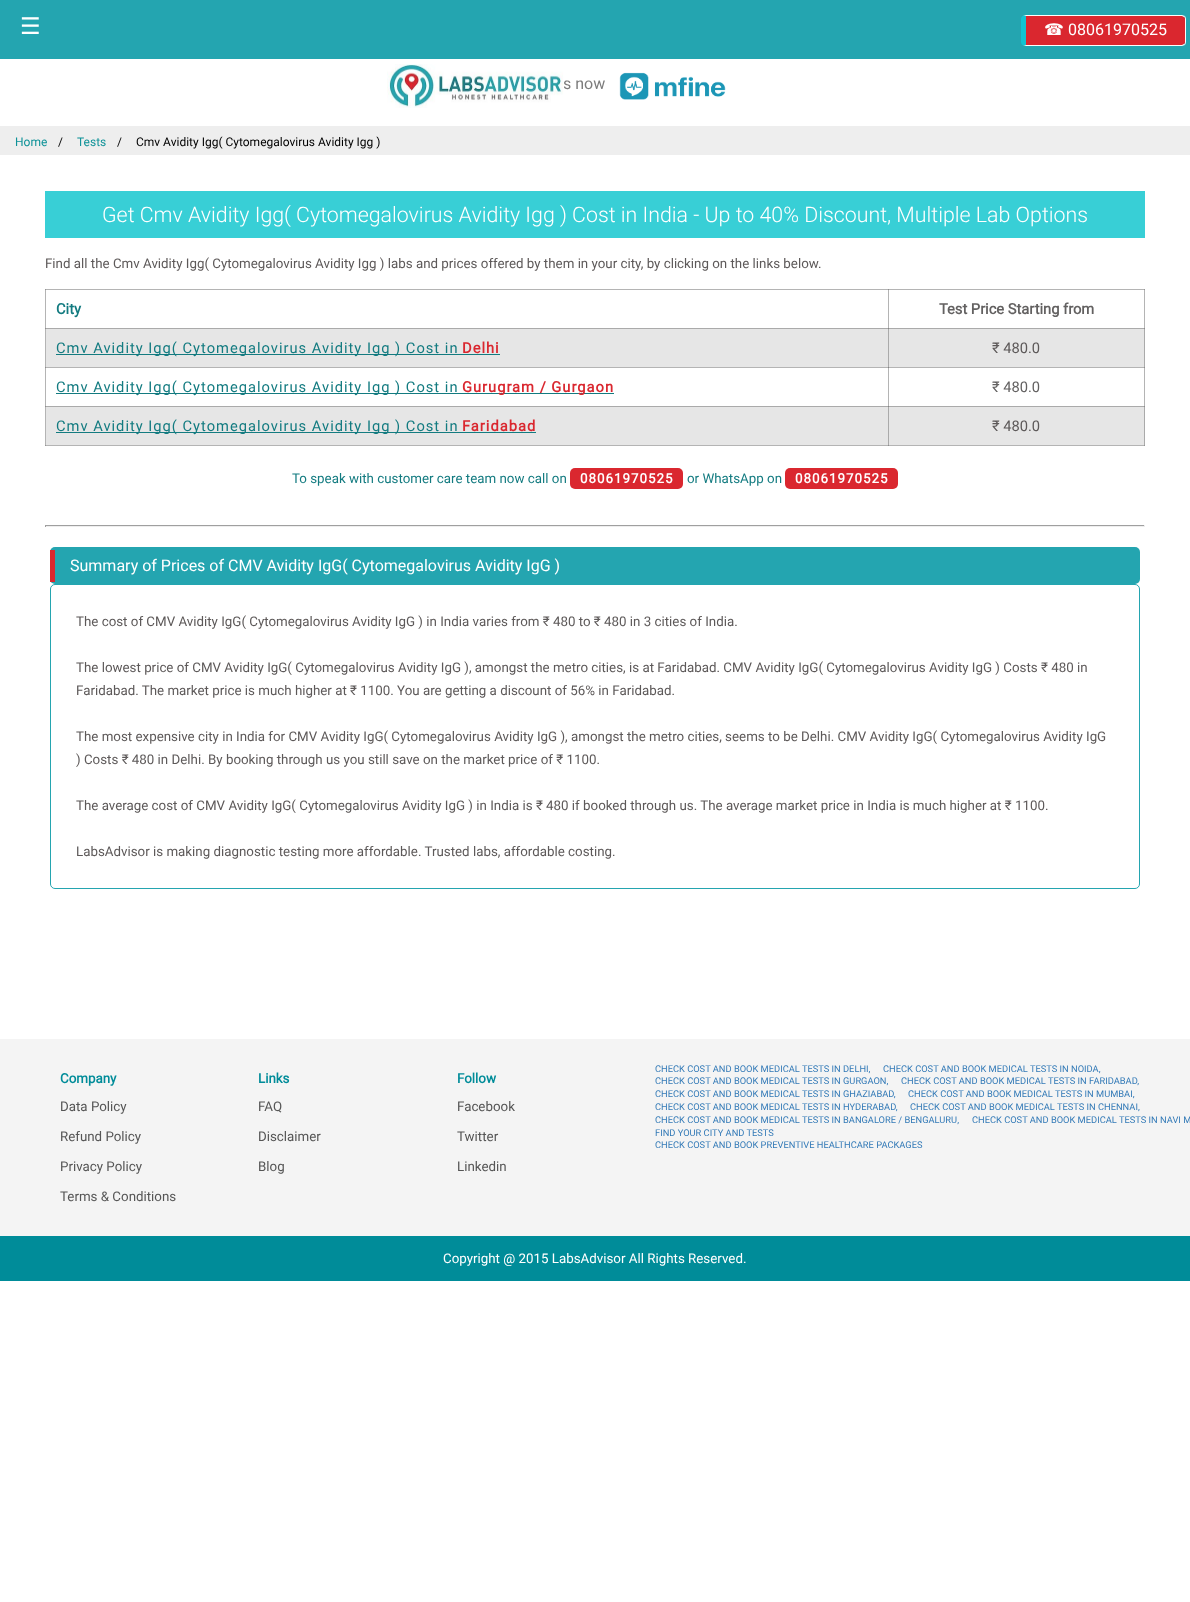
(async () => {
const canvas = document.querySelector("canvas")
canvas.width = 1190
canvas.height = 1602
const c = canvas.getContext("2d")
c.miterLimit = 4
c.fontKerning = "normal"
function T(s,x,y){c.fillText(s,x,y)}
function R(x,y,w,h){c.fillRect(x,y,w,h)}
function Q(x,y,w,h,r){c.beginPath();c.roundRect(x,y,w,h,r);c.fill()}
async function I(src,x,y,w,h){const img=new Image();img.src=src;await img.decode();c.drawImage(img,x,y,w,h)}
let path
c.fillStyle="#fff"
R(0,0,1190,1602)
c.fillStyle="#b4b4b4"
R(888,289,1,40)
R(45,367,844,1)
R(888,367,1,40)
R(888,367,257,1)
c.fillStyle="#838383"
R(888,367,1,1)
c.fillStyle="#b4b4b4"
R(45,289,1,157)
c.fillStyle="#8d8d8d"
R(45,328,1,1)
R(45,367,1,1)
R(45,406,1,1)
c.fillStyle="#b4b4b4"
R(45,445,1100,1)
c.fillStyle="#8d8d8d"
R(888,445,1,1)
c.fillStyle="#959595"
R(45,445,1,1)
c.fillStyle="#b4b4b4"
R(1144,289,1,40)
R(1144,367,1,40)
c.fillStyle="#8d8d8d"
R(1144,367,1,1)
c.fillStyle="#959595"
R(1144,445,1,1)
c.fillStyle="#24a5b0"
R(0,0,1190,59)
c.font="23px DejaVu Sans"
c.fillStyle="#fff"
T("☰",20,34)
c.fillStyle="#da272f"
path = new Path2D("M1026 16h156c2 0 3 1 3 3v23c0 2-1 3-3 3h-156z")
c.fill(path)
c.fillStyle="#fefefb"
path = new Path2D("M1025 15h-2l3 1h156l2 1l1-1l-3-1z")
c.fill(path)
path = new Path2D("M1186 42v-23c0-1-.5-2-1-3l-1 1c1 0 1 1 1 2v23c0 1 0 2-1 2l1 1c.5-1 1-2 1-3z")
c.fill(path)
path = new Path2D("M1025 46h157l3-1l-1-1l-2 1h-156l-3 1z")
c.fill(path)
c.fillStyle="#11c3d2"
path = new Path2D("M1026 16l-2.5-.5c-1.5 .5-2.5 2-2.5 3.5v23c0 1.5 1 3 2.5 3.5l2.5-.5z")
c.fill(path)
c.font="16px DejaVu Sans"
c.fillStyle="#fff"
T("☎",1044,35)
c.font="16px Roboto"
T("08061970525",1068,35)
c.fillStyle="#7c7c7c"
T("s now",563,89)
await I("1.png",387,64,177,44)
await I("2.png",619,72,107,28)
c.fillStyle="#eee"
R(0,126,1190,29)
c.font="12px Roboto"
c.fillStyle="#0e9298"
T("Home",15,146)
c.fillStyle="#000"
T("/",58,146)
c.fillStyle="#0e9298"
T("Tests",77,146)
c.fillStyle="#000"
T("/",117,146)
T("Cmv Avidity Igg( Cytomegalovirus Avidity Igg )",136,146)
c.fillStyle="#38cfd6"
R(45,191,1100,47)
c.font="300 21.35px Roboto"
c.fillStyle="#fff"
T("Get Cmv Avidity Igg( Cytomegalovirus Avidity Igg ) Cost in India - Up to 40% Discount, Multiple Lab Options",102,222)
c.font="13.33px Roboto"
c.fillStyle="#5d5959"
T("Find all the Cmv Avidity Igg( Cytomegalovirus Avidity Igg ) labs and prices offered by them in your city, by clicking on the links below.",45,268)
c.fillStyle="#b4b4b4"
R(45,289,1100,1)
c.fillStyle="#8d8d8d"
R(888,289,1,1)
c.fillStyle="#959595"
R(45,289,1,1)
R(1144,289,1,1)
c.font="bold 14.7px Roboto"
c.fillStyle="#137b80"
T("City",56,314)
c.fillStyle="#636161"
T("Test Price Starting from",939,314)
c.fillStyle="#e6e6e6"
R(46,329,1098,38)
c.fillStyle="#aaa"
R(46,328,843,1)
R(888,328,1,39)
R(888,328,257,1)
c.fillStyle="#838383"
R(888,328,1,1)
c.fillStyle="#aaa"
R(1144,328,1,39)
c.fillStyle="#8b8b8b"
R(1144,328,1,1)
c.fillStyle="#137b80"
R(56,354,444,1)
c.letterSpacing="1px"
c.font="14.7px Roboto"
T("Cmv Avidity Igg( Cytomegalovirus Avidity Igg ) Cost in",56,353)
c.font="bold 14.7px Roboto"
c.fillStyle="#da272f"
T("Delhi",462,353)
c.letterSpacing="0px"
c.font="14.7px Roboto"
c.fillStyle="#5d5959"
T("₹ 480.0",992,353)
c.fillStyle="#137b80"
R(56,393,558,1)
c.letterSpacing="1px"
T("Cmv Avidity Igg( Cytomegalovirus Avidity Igg ) Cost in",56,392)
c.font="bold 14.7px Roboto"
c.fillStyle="#da272f"
T("Gurugram / Gurgaon",462,392)
c.letterSpacing="0px"
c.font="14.7px Roboto"
c.fillStyle="#636161"
T("₹ 480.0",992,392)
c.fillStyle="#e6e6e6"
R(46,407,1098,38)
c.fillStyle="#aaa"
R(46,406,843,1)
R(888,406,1,39)
R(888,406,257,1)
c.fillStyle="#838383"
R(888,406,1,1)
c.fillStyle="#aaa"
R(1144,406,1,39)
c.fillStyle="#8b8b8b"
R(1144,406,1,1)
c.fillStyle="#137b80"
R(56,432,480,1)
c.letterSpacing="1px"
T("Cmv Avidity Igg( Cytomegalovirus Avidity Igg ) Cost in",56,431)
c.font="bold 14.7px Roboto"
c.fillStyle="#da272f"
T("Faridabad",462,431)
c.letterSpacing="0px"
c.font="14.7px Roboto"
c.fillStyle="#5d5959"
T("₹ 480.0",992,431)
c.font="13.33px Roboto"
c.fillStyle="#137b80"
T("To speak with customer care team now call on",292,483)
c.fillStyle="#da272f"
Q(570,468,113,21,5)
c.letterSpacing="1px"
c.font="bold 13.33px Roboto"
c.fillStyle="#fff"
T("08061970525",580,483)
c.letterSpacing="0px"
c.font="13.33px Roboto"
c.fillStyle="#137b80"
T("or WhatsApp on",687,483)
c.fillStyle="#da272f"
Q(785,468,113,21,5)
c.letterSpacing="1px"
c.font="bold 13.33px Roboto"
c.fillStyle="#fff"
T("08061970525",795,483)
c.fillStyle="#9f9f9f"
R(45,525,1100,1)
c.fillStyle="#eee"
R(1144,525,1,2)
R(45,526,1100,1)
c.fillStyle="#9f9f9f"
R(45,525,1,2)
c.fillStyle="#24a5b0"
Q(50,547,1090,37,5)
c.fillStyle="#da272f"
R(50,550,5,32)
c.letterSpacing="0px"
c.font="16px Roboto"
c.fillStyle="#fff"
T("Summary of Prices of CMV Avidity IgG( Cytomegalovirus Avidity IgG )",70,571)
c.beginPath()
c.roundRect(50.5,584.5,1089,304,4.5)
c.strokeStyle="#24a5b0"
c.stroke()
c.font="13.33px Roboto"
c.fillStyle="#5d5959"
T("The cost of CMV Avidity IgG( Cytomegalovirus Avidity IgG ) in India varies from ₹ 480 to ₹ 480 in 3 cities of India.",76,626)
T("The lowest price of CMV Avidity IgG( Cytomegalovirus Avidity IgG ), amongst the metro cities, is at Faridabad. CMV Avidity IgG( Cytomegalovirus Avidity IgG ) Costs ₹ 480 in",76,672)
T("Faridabad. The market price is much higher at ₹ 1100. You are getting a discount of 56% in Faridabad.",76,695)
T("The most expensive city in India for CMV Avidity IgG( Cytomegalovirus Avidity IgG ), amongst the metro cities, seems to be Delhi. CMV Avidity IgG( Cytomegalovirus Avidity IgG",76,741)
T(") Costs ₹ 480 in Delhi. By booking through us you still save on the market price of ₹ 1100.",76,764)
T("The average cost of CMV Avidity IgG( Cytomegalovirus Avidity IgG ) in India is ₹ 480 if booked through us. The average market price in India is much higher at ₹ 1100.",76,810)
T("LabsAdvisor is making diagnostic testing more affordable. Trusted labs, affordable costing.",76,856)
c.fillStyle="#f4f4f4"
R(0,1039,1190,197)
c.font="bold 13.33px Roboto"
c.fillStyle="#008c99"
T("Company",60,1083)
c.font="13.33px Roboto"
c.fillStyle="#555"
T("Data Policy",60,1111)
T("Refund Policy",60,1141)
T("Privacy Policy",60,1171)
T("Terms & Conditions",60,1201)
c.font="bold 13.33px Roboto"
c.fillStyle="#008c99"
T("Links",258,1083)
c.font="13.33px Roboto"
c.fillStyle="#555"
T("FAQ",258,1111)
T("Disclaimer",258,1141)
T("Blog",258,1171)
c.font="bold 13.33px Roboto"
c.fillStyle="#008c99"
T("Follow",457,1083)
c.font="13.33px Roboto"
c.fillStyle="#555"
T("Facebook",457,1111)
T("Twitter",457,1141)
T("Linkedin",457,1171)
c.font="9.3px Roboto"
c.fillStyle="#337ab7"
T("CHECK COST AND BOOK MEDICAL TESTS IN DELHI,",655,1072)
T("CHECK COST AND BOOK MEDICAL TESTS IN NOIDA,",883,1072)
T("CHECK COST AND BOOK MEDICAL TESTS IN GURGAON,",655,1084)
T("CHECK COST AND BOOK MEDICAL TESTS IN FARIDABAD,",901,1084)
T("CHECK COST AND BOOK MEDICAL TESTS IN GHAZIABAD,",655,1097)
T("CHECK COST AND BOOK MEDICAL TESTS IN MUMBAI,",908,1097)
T("CHECK COST AND BOOK MEDICAL TESTS IN HYDERABAD,",655,1110)
T("CHECK COST AND BOOK MEDICAL TESTS IN CHENNAI,",910,1110)
T("CHECK COST AND BOOK MEDICAL TESTS IN BANGALORE / BENGALURU,",655,1123)
T("CHECK COST AND BOOK MEDICAL TESTS IN NAVI M",972,1123)
T("FIND YOUR CITY AND TESTS",655,1136)
T("CHECK COST AND BOOK PREVENTIVE HEALTHCARE PACKAGES",655,1148)
c.fillStyle="#008c99"
R(0,1236,1190,45)
c.font="13.33px Roboto"
c.fillStyle="#fff"
T("Copyright @ 2015 LabsAdvisor All Rights Reserved.",443,1263)
})()
